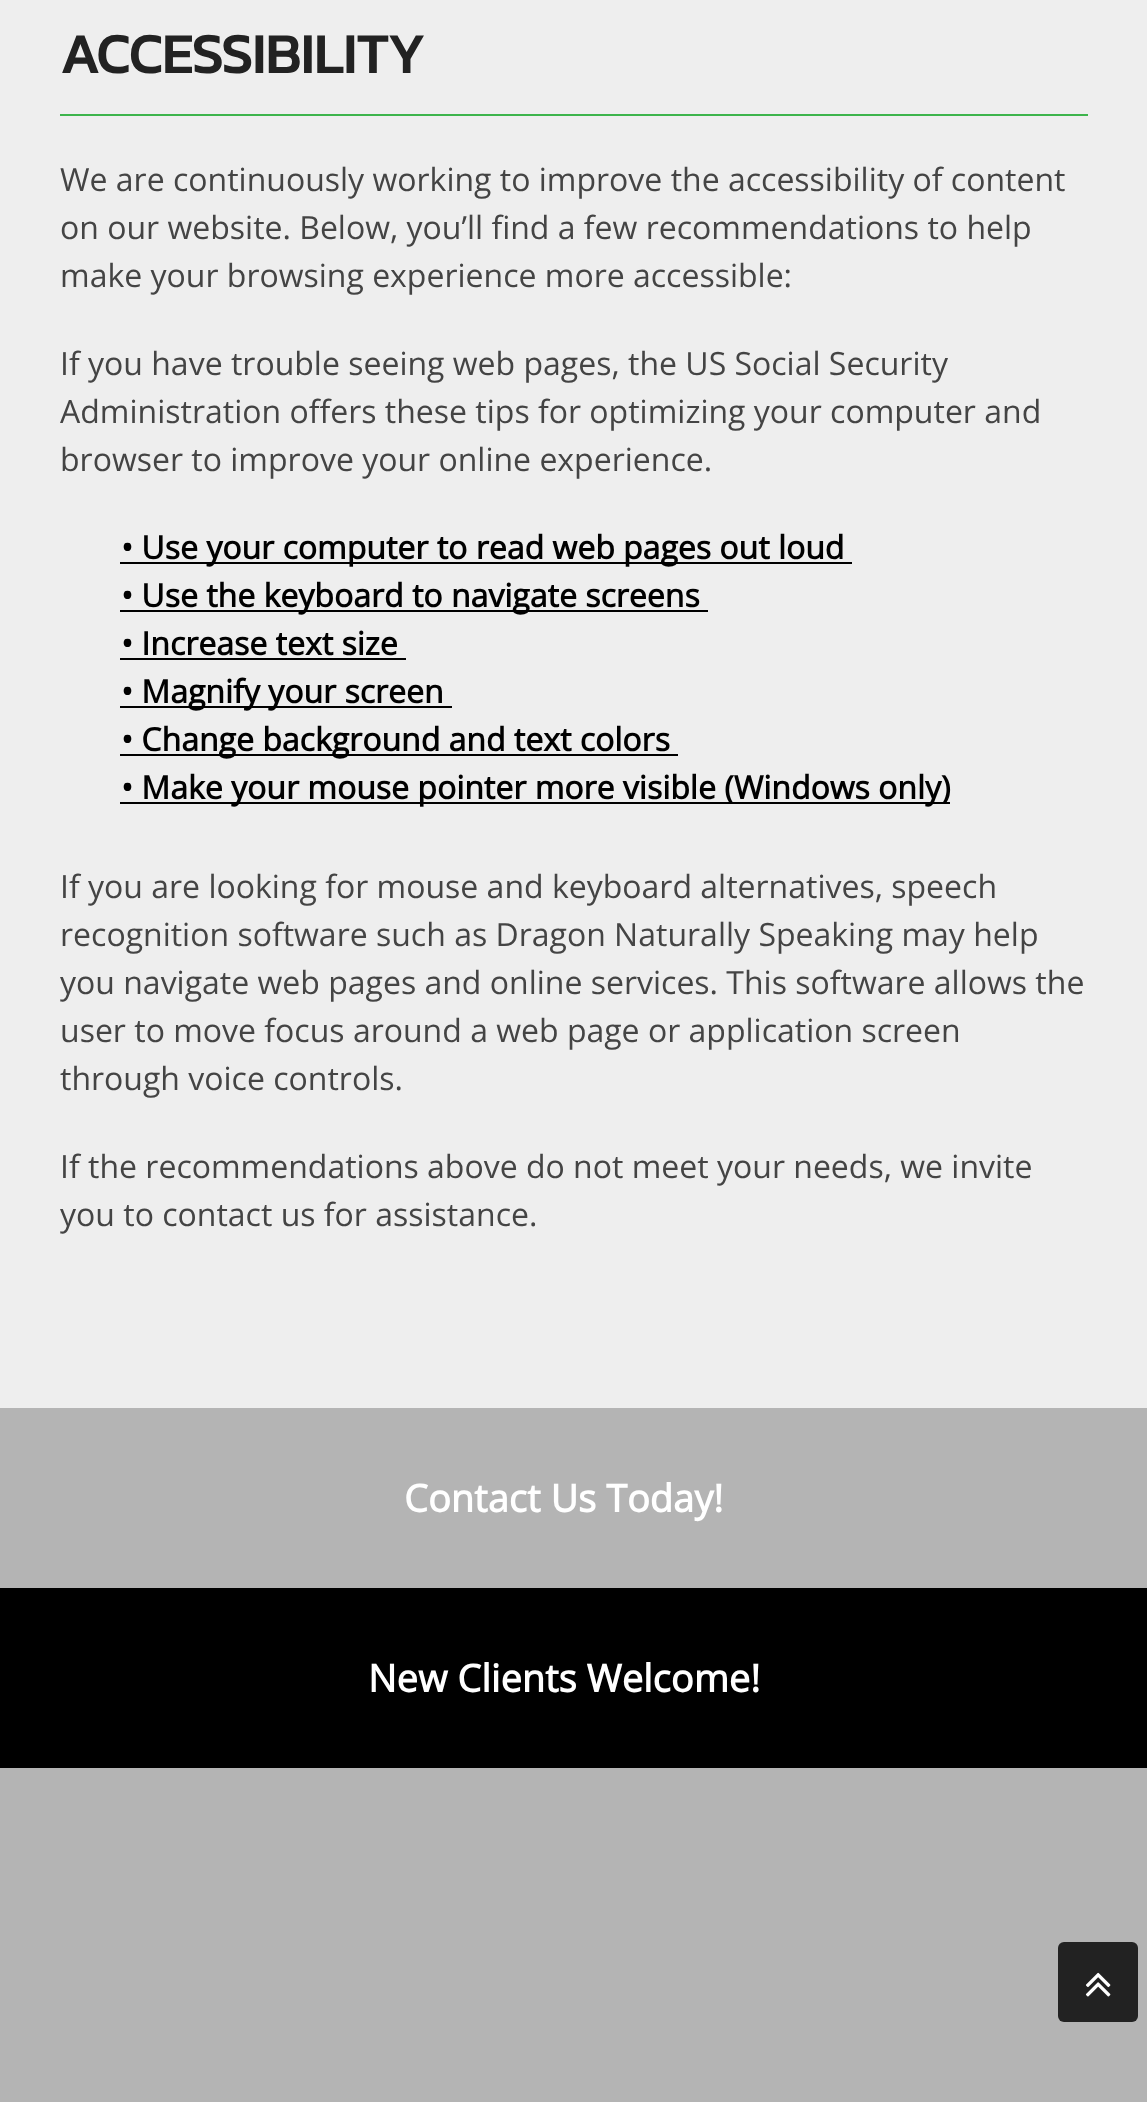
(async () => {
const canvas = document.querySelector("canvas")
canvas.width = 1147
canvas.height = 2102
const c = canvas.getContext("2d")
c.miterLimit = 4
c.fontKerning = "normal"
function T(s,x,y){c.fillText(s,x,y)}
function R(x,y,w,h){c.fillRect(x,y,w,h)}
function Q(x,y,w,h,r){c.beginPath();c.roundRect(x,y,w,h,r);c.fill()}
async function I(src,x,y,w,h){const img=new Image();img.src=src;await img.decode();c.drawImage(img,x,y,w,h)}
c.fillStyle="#eee"
R(0,0,1147,2102)
c.fillStyle="#3db44c"
R(60,114,1028,2)
c.font="bold 56px Kanit"
c.fillStyle="#222"
T("ACCESSIBILITY",60,73)
c.font="32px Open Sans"
c.fillStyle="#444"
T("We are continuously working to improve the accessibility of content",60,191)
T("on our website. Below, you’ll find a few recommendations to help",60,239)
T("make your browsing experience more accessible:",60,287)
T("If you have trouble seeing web pages, the US Social Security",60,375)
T("Administration offers these tips for optimizing your computer and",60,423)
T("browser to improve your online experience.",60,471)
c.fillStyle="#000"
R(120,562,732,2)
c.font="bold 32px Open Sans"
T("• Use your computer to read web pages out loud",121,559)
R(120,610,588,2)
T("• Use the keyboard to navigate screens",121,607)
T("• Increase text size",121,655)
R(120,658,286,2)
R(120,706,332,2)
T("• Magnify your screen",121,703)
R(120,754,558,2)
T("• Change background and text colors",121,751)
R(120,802,830,2)
T("• Make your mouse pointer more visible (Windows only)",121,799)
c.font="32px Open Sans"
c.fillStyle="#444"
T("If you are looking for mouse and keyboard alternatives, speech",60,898)
T("recognition software such as Dragon Naturally Speaking may help",60,946)
T("you navigate web pages and online services. This software allows the",60,994)
T("user to move focus around a web page or application screen",60,1042)
T("through voice controls.",60,1090)
T("If the recommendations above do not meet your needs, we invite",60,1178)
T("you to contact us for assistance.",60,1226)
c.fillStyle="#b4b4b4"
R(0,1408,1147,180)
c.font="bold 38px Open Sans"
c.fillStyle="#fff"
T("Contact Us Today!",404,1512)
c.fillStyle="#000"
R(0,1588,1147,180)
c.fillStyle="#fff"
T("New Clients Welcome!",368,1692)
c.fillStyle="#b4b4b4"
R(0,1768,1147,334)
c.fillStyle="#222"
Q(1058,1942,80,80,6)
await I("1.png",1085,1972,26,25)
})()
